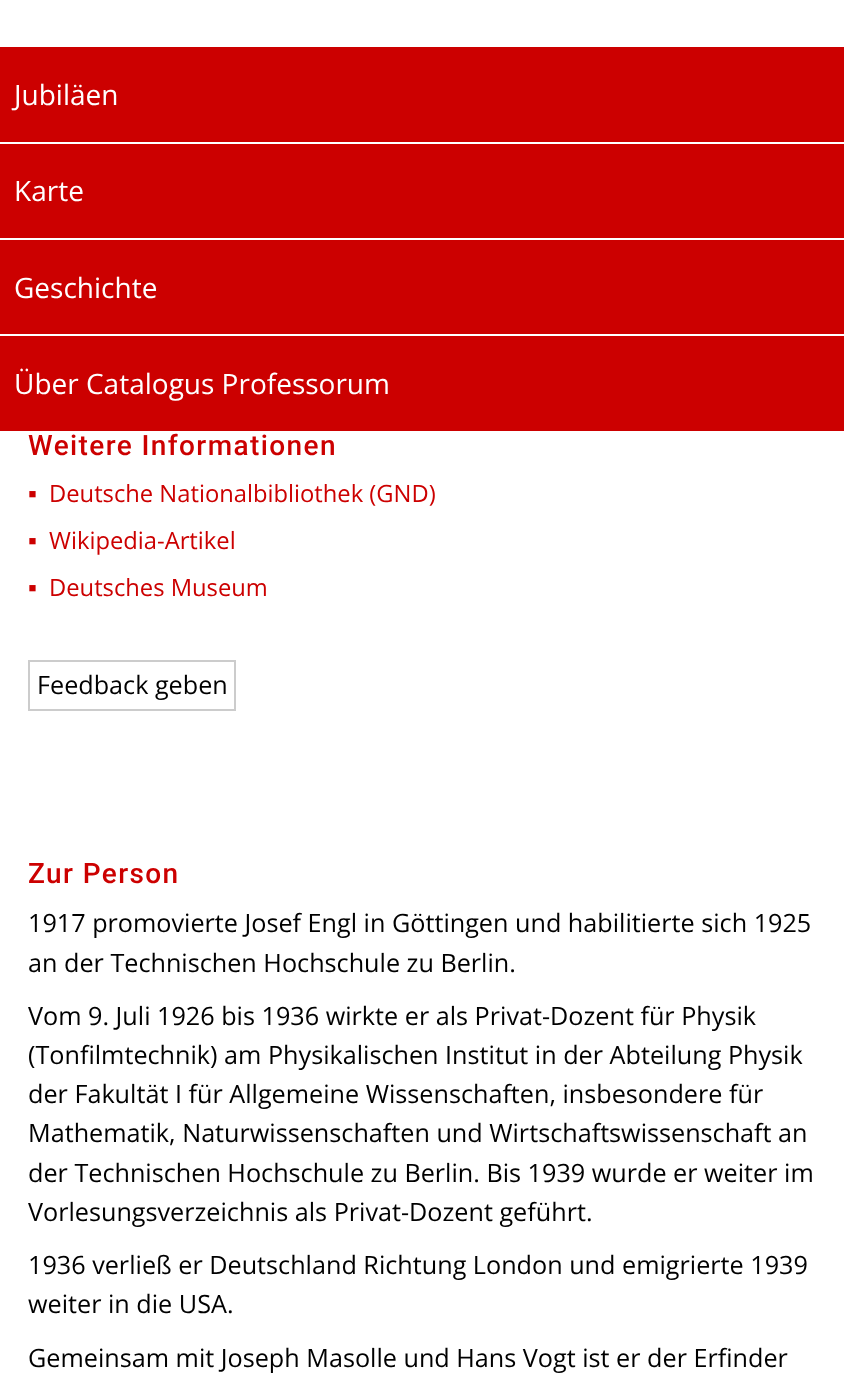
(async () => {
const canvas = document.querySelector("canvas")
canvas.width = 844
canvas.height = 1400
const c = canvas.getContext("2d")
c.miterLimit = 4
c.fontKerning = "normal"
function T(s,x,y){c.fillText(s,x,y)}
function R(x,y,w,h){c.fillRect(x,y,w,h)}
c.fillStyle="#fff"
R(0,0,844,1400)
c.fillStyle="#c00"
R(0,47,844,95)
c.font="28px Open Sans"
c.fillStyle="#fff"
T("Jubiläen",14,105)
c.fillStyle="#c00"
R(0,144,844,94)
c.fillStyle="#fff"
T("Karte",14,201)
c.fillStyle="#c00"
R(0,240,844,94)
c.fillStyle="#fff"
T("Geschichte",14,298)
c.fillStyle="#c00"
R(0,336,844,95)
c.fillStyle="#fff"
T("Über Catalogus Professorum",14,394)
c.letterSpacing="1.4px"
c.font="500 28px Roboto"
c.fillStyle="#c00"
T("Weitere Informationen",28,455)
c.letterSpacing="0px"
c.font="25.2px Liberation Sans"
T("▪",28,502)
c.font="23.75px Open Sans"
T("Deutsche Nationalbibliothek (GND)",49,502)
c.font="25.2px Liberation Sans"
T("▪",28,549)
c.font="23.75px Open Sans"
T("Wikipedia-Artikel",49,549)
c.font="25.2px Liberation Sans"
T("▪",28,596)
c.font="23.75px Open Sans"
T("Deutsches Museum",49,596)
c.strokeStyle="#ccc"
c.lineWidth=2
c.strokeRect(29,661,206,49)
c.font="25.2px Open Sans"
c.fillStyle="#000"
T("Feedback geben",37,694)
c.letterSpacing="1.4px"
c.font="500 28px Roboto"
c.fillStyle="#c00"
T("Zur Person",28,883)
c.letterSpacing="0px"
c.font="25.2px Open Sans"
c.fillStyle="#000"
T("1917 promovierte Josef Engl in Göttingen und habilitierte sich 1925",28,932)
T("an der Technischen Hochschule zu Berlin.",28,972)
T("Vom 9. Juli 1926 bis 1936 wirkte er als Privat-Dozent für Physik",28,1025)
T("(Tonfilmtechnik) am Physikalischen Institut in der Abteilung Physik",28,1064)
T("der Fakultät I für Allgemeine Wissenschaften, insbesondere für",28,1103)
T("Mathematik, Naturwissenschaften und Wirtschaftswissenschaft an",28,1142)
T("der Technischen Hochschule zu Berlin. Bis 1939 wurde er weiter im",28,1182)
T("Vorlesungsverzeichnis als Privat-Dozent geführt.",28,1221)
T("1936 verließ er Deutschland Richtung London und emigrierte 1939",28,1274)
T("weiter in die USA.",28,1313)
T("Gemeinsam mit Joseph Masolle und Hans Vogt ist er der Erfinder",28,1367)
})()
